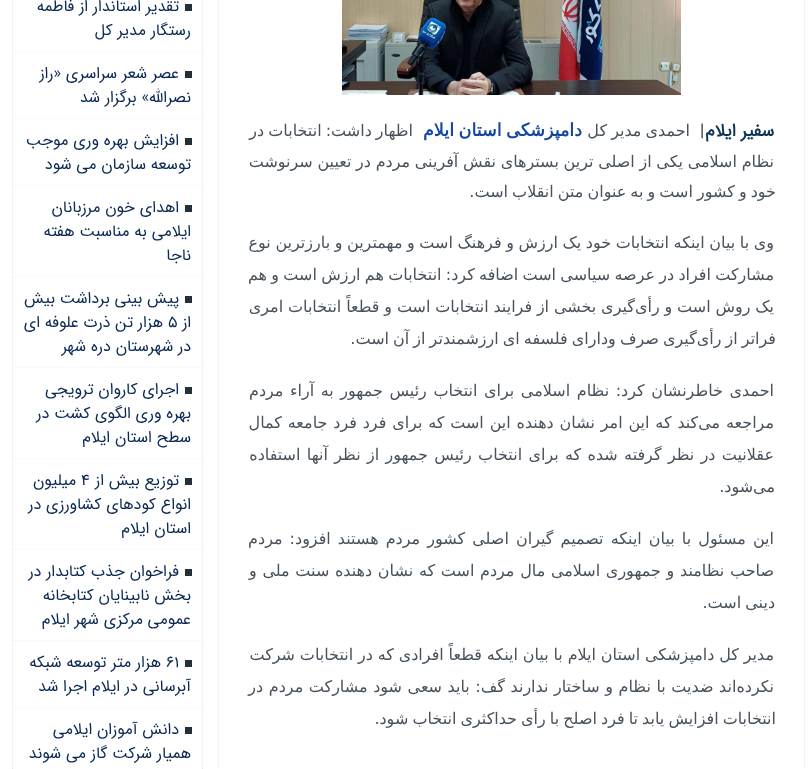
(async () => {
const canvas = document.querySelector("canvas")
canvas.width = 810
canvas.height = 769
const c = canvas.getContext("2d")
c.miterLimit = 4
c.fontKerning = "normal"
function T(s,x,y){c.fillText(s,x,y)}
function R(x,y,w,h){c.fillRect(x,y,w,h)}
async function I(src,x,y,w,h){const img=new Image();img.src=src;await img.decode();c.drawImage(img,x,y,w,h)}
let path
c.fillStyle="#fff"
R(0,0,810,769)
path = new Path2D("M804.5-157v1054")
c.strokeStyle="#e7e7e7"
c.setLineDash([1,1])
c.stroke(path)
path = new Path2D("M218.5-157v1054")
c.stroke(path)
await I("1.png",342,0,339,95)
c.direction="rtl"
c.font="bold 17.5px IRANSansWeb"
c.fillStyle="#0c3555"
T("سفیر ایلام",774,136)
c.direction="ltr"
c.font="17.5px IRANSansWeb"
c.fillStyle="#333"
T("|",700,136)
c.wordSpacing="-1px"
c.direction="rtl"
c.font="16px DejaVu Sans"
c.fillStyle="#48525c"
T("احمدی مدیر کل",690,136)
c.font="bold 17.5px DejaVu Sans"
c.fillStyle="#14479f"
T("دامپزشکی استان ایلام",582,136)
c.font="16px DejaVu Sans"
c.fillStyle="#48525c"
T("اظهار داشت: انتخابات در",413,136)
c.wordSpacing="-0.4px"
T("نظام اسلامی یکی از اصلی ترین بسترهای نقش آفرینی مردم در تعیین سرنوشت",774,167)
c.wordSpacing="-1px"
T("خود و کشور است و به عنوان متن انقلاب است.",776,197)
c.wordSpacing="-0.5px"
T("وی با بیان اینکه انتخابات خود یک ارزش و فرهنگ است و مهمترین و بارزترین نوع",774,248)
c.wordSpacing="-0.8px"
T("مشارکت افراد در عرصه سیاسی است اضافه کرد: انتخابات هم ارزش است و هم",774,280)
c.wordSpacing="-0.25px"
T("یک روش است و رأی‌گیری بخشی از فرایند انتخابات است و قطعاً انتخابات امری",774,312)
c.wordSpacing="-1px"
T("فراتر از رأی‌گیری صرف ودارای فلسفه ای ارزشمندتر از آن است.",776,344)
c.wordSpacing="1.5px"
T("احمدی خاطرنشان کرد: نظام اسلامی برای انتخاب رئیس جمهور به آراء مردم",774,396)
c.wordSpacing="0.75px"
T("مراجعه می‌کند که این امر نشان دهنده این است که برای فرد فرد جامعه کمال",774,428)
c.wordSpacing="1.25px"
T("عقلانیت در نظر گرفته شده که برای انتخاب رئیس جمهور از نظر آنها استفاده",774,460)
c.wordSpacing="0px"
T("می‌شود.",775,492)
c.wordSpacing="2px"
T("این مسئول با بیان اینکه تصمیم گیران اصلی کشور مردم هستند افزود: مردم",774,544)
c.wordSpacing="0.6px"
T("صاحب نظامند و جمهوری اسلامی مال مردم است که نشان دهنده سنت ملی و",774,576)
c.wordSpacing="-1px"
T("دینی است.",775,608)
c.wordSpacing="-0.25px"
T("مدیر کل دامپزشکی استان ایلام با بیان اینکه قطعاً افرادی که در انتخابات شرکت",774,660)
c.wordSpacing="0.5px"
T("نکرده‌اند ضدیت با نظام و ساختار ندارند گف: باید سعی شود مشارکت مردم در",774,692)
c.wordSpacing="-1px"
T("انتخابات افزایش یابد تا فرد اصلح با رأی حداکثری انتخاب شود.",776,724)
path = new Path2D("M202.5-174v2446")
c.stroke(path)
path = new Path2D("M12.5-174v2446")
c.stroke(path)
c.fillStyle="#243038"
R(185,4,7,7)
c.wordSpacing="0px"
c.font="16px IRANSansWeb"
c.fillStyle="#0a2954"
T("تقدیر استاندار از فاطمه",179,11)
T("رستگار مدیر کل",191,35)
path = new Path2D("M13 51.5h189")
c.strokeStyle="#f5f5f5"
c.stroke(path)
c.fillStyle="#243038"
R(185,71,7,7)
c.fillStyle="#0a2954"
T("عصر شعر سراسری «راز",179,78)
T("نصرالله» برگزار شد",191,102)
path = new Path2D("M13 118.5h189")
c.stroke(path)
c.fillStyle="#243038"
R(185,138,7,7)
c.fillStyle="#0a2954"
T("افزایش بهره",179,145)
T("وری موجب",99,145)
T("توسعه سازمان می شود",191,169)
path = new Path2D("M13 185.5h189")
c.stroke(path)
c.fillStyle="#243038"
R(185,205,7,7)
c.fillStyle="#0a2954"
T("اهدای خون مرزبانان",179,212)
T("ایلامی به مناسبت هفته",191,236)
T("ناجا",191,260)
path = new Path2D("M13 276.5h189")
c.stroke(path)
c.fillStyle="#243038"
R(185,296,7,7)
c.fillStyle="#0a2954"
T("پیش بینی برداشت بیش",179,303)
T("از",191,327)
c.direction="ltr"
T("۵",168,327)
c.direction="rtl"
T("هزار تن ذرت علوفه ای",163,327)
T("در شهرستان دره شهر",191,351)
path = new Path2D("M13 367.5h189")
c.stroke(path)
c.fillStyle="#243038"
R(185,387,7,7)
c.fillStyle="#0a2954"
T("اجرای کاروان ترویجی",179,394)
T("بهره وری الگوی کشت در",191,418)
T("سطح استان ایلام",191,442)
path = new Path2D("M13 458.5h189")
c.stroke(path)
c.fillStyle="#243038"
R(185,478,7,7)
c.fillStyle="#0a2954"
T("توزیع بیش از",179,485)
c.direction="ltr"
T("۴",81,485)
c.direction="rtl"
T("میلیون",76,485)
T("انواع کودهای کشاورزی در",191,509)
T("استان ایلام",191,533)
path = new Path2D("M13 549.5h189")
c.stroke(path)
c.fillStyle="#243038"
R(185,569,7,7)
c.fillStyle="#0a2954"
T("فراخوان جذب کتابدار در",179,576)
T("بخش نابینایان کتابخانه",191,600)
T("عمومی مرکزی شهر ایلام",191,624)
path = new Path2D("M13 640.5h189")
c.stroke(path)
c.fillStyle="#243038"
R(185,660,7,7)
c.direction="ltr"
c.fillStyle="#0a2954"
T("۶۱",166,667)
c.direction="rtl"
T("هزار متر توسعه شبکه",161,667)
T("آبرسانی در ایلام اجرا شد",191,691)
path = new Path2D("M13 707.5h189")
c.stroke(path)
c.fillStyle="#243038"
R(185,727,7,7)
c.fillStyle="#0a2954"
T("دانش آموزان ایلامی",179,734)
T("همیار شرکت گاز می شوند",191,758)
})()
